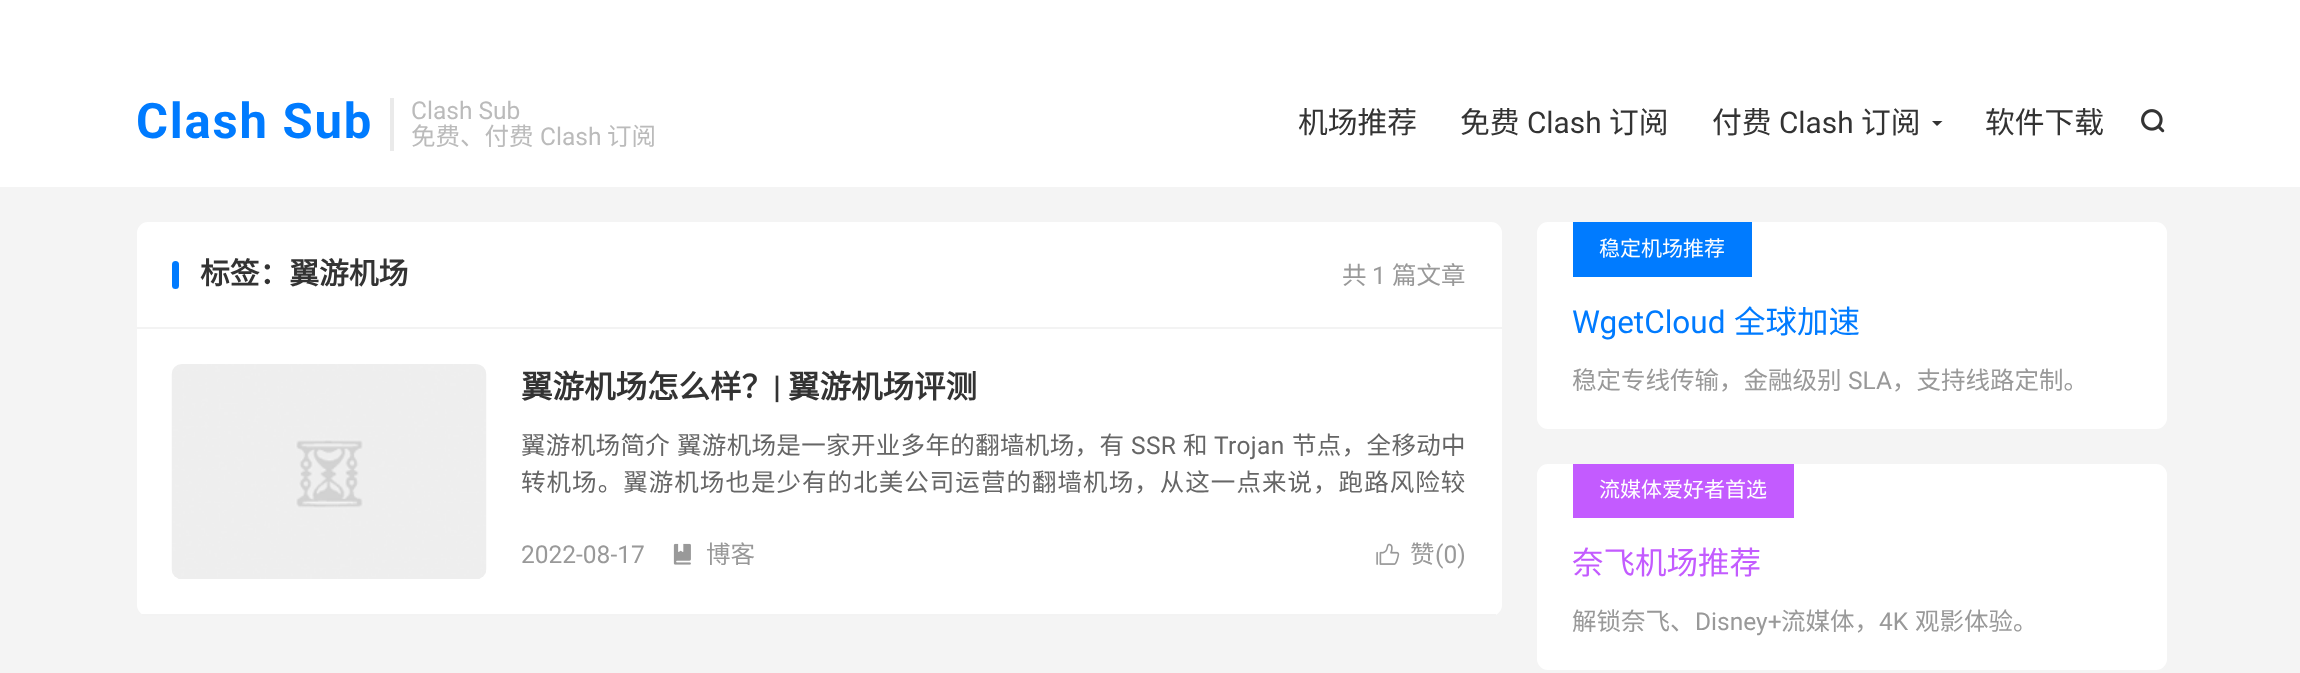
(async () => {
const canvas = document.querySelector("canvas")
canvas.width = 2300
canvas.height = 673
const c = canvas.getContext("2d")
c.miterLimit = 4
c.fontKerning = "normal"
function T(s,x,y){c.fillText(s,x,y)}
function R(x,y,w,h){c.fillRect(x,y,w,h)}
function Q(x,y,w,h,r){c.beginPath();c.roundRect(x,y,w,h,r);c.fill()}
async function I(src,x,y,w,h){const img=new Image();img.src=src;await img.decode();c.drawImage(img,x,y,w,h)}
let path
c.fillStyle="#f4f4f4"
R(0,0,2300,673)
c.fillStyle="#fff"
R(0,0,2300,187)
c.letterSpacing="1.75px"
c.font="bold 49px Roboto"
c.fillStyle="#007bff"
T("Clash Sub",136,138)
c.fillStyle="#eaeaea"
R(390,98,4,53)
c.letterSpacing="0px"
c.font="24.5px Roboto"
c.fillStyle="#bbb"
T("Clash Sub",411,119)
c.font="24.5px Noto Sans CJK SC"
T("免费、付费",411,145)
c.font="24.5px Roboto"
T("Clash",540,145)
c.font="24.5px Noto Sans CJK SC"
T("订阅",607,145)
c.font="29.75px Noto Sans CJK SC"
c.fillStyle="#333"
T("机场推荐",1298,133)
T("免费",1460,133)
c.font="29.75px Roboto"
T("Clash",1527,133)
c.font="29.75px Noto Sans CJK SC"
T("订阅",1609,133)
T("付费",1712,133)
c.font="29.75px Roboto"
T("Clash",1779,133)
c.font="29.75px Noto Sans CJK SC"
T("订阅",1861,133)
path = new Path2D("M1932 121h10.5l-5.5 5z")
c.fill(path)
T("软件下载",1985,133)
await I("1.png",2141,109,24,24)
c.fillStyle="#fff"
c.beginPath()
c.roundRect(137,222,1365,107,[11,11,0,0])
c.fill()
c.fillStyle="#f3f3f3"
R(137,327,1365,2)
c.fillStyle="#007bff"
Q(172,261,7,28,3.5)
c.font="bold 29.75px Noto Sans CJK SC"
c.fillStyle="#333"
T("标签：翼游机场",200,284)
c.font="24.5px Noto Sans CJK SC"
c.fillStyle="#999"
T("共",1342,284)
c.font="24.5px Roboto"
T("1",1372,284)
c.font="24.5px Noto Sans CJK SC"
T("篇文章",1392,284)
c.fillStyle="#fff"
c.beginPath()
c.roundRect(137,329,1365,287,[0,0,11,11])
c.fill()
c.fillStyle="#f3f3f3"
R(142,614,1354,2)
await I("2.png",171,364,316,215)
c.font="bold 31.5px Noto Sans CJK SC"
c.fillStyle="#333"
T("翼游机场怎么样？",521,398)
c.font="bold 31.5px Roboto"
T("|",773,398)
c.font="bold 31.5px Noto Sans CJK SC"
T("翼游机场评测",788,398)
c.letterSpacing="0.35px"
c.wordSpacing="1px"
c.font="24.5px Noto Sans CJK SC"
c.fillStyle="#666"
T("翼游机场简介 翼游机场是一家开业多年的翻墙机场，有",521,454)
c.wordSpacing="0px"
c.font="24.5px Roboto"
T("SSR",1131,454)
c.font="24.5px Noto Sans CJK SC"
T("和",1183,454)
c.font="24.5px Roboto"
T("Trojan",1214,454)
c.font="24.5px Noto Sans CJK SC"
T("节点，全移动中",1292,454)
c.save()
c.beginPath()
c.rect(522,429,945,73)
c.clip()
c.letterSpacing="1.05px"
T("转机场。翼游机场也是少有的北美公司运营的翻墙机场，从这一点来说，跑路风险较",521,491)
c.restore()
c.letterSpacing="0px"
c.font="24.5px Roboto"
c.fillStyle="#999"
T("2022-08-17",521,563)
await I("3.png",673,543,18,22)
c.font="24.5px Noto Sans CJK SC"
T("博客",706,563)
await I("4.png",1376,543,24,22)
T("赞",1410,563)
c.font="24.5px Roboto"
T("(0)",1435,563)
c.fillStyle="#fff"
Q(1537,222,630,207,11)
c.fillStyle="#007bff"
R(1573,222,179,55)
c.font="21px Noto Sans CJK SC"
c.fillStyle="#fff"
T("稳定机场推荐",1599,256)
c.font="31.5px Roboto"
c.fillStyle="#007bff"
T("WgetCloud",1572,333)
c.font="31.5px Noto Sans CJK SC"
T("全球加速",1734,333)
c.font="24.5px Noto Sans CJK SC"
c.fillStyle="#999"
T("稳定专线传输，金融级别",1572,389)
c.font="24.5px Roboto"
T("SLA",1848,389)
c.font="24.5px Noto Sans CJK SC"
T("，支持线路定制。",1892,389)
c.fillStyle="#fff"
Q(1537,464,630,206,11)
c.fillStyle="#c35bff"
R(1573,464,221,54)
c.font="21px Noto Sans CJK SC"
c.fillStyle="#fff"
T("流媒体爱好者首选",1599,497)
c.font="31.5px Noto Sans CJK SC"
c.fillStyle="#c35bff"
T("奈飞机场推荐",1572,574)
c.font="24.5px Noto Sans CJK SC"
c.fillStyle="#999"
T("解锁奈飞、",1572,630)
c.font="24.5px Roboto"
T("Disney+",1695,630)
c.font="24.5px Noto Sans CJK SC"
T("流媒体，",1781,630)
c.font="24.5px Roboto"
T("4K",1879,630)
c.font="24.5px Noto Sans CJK SC"
T("观影体验。",1915,630)
})()
